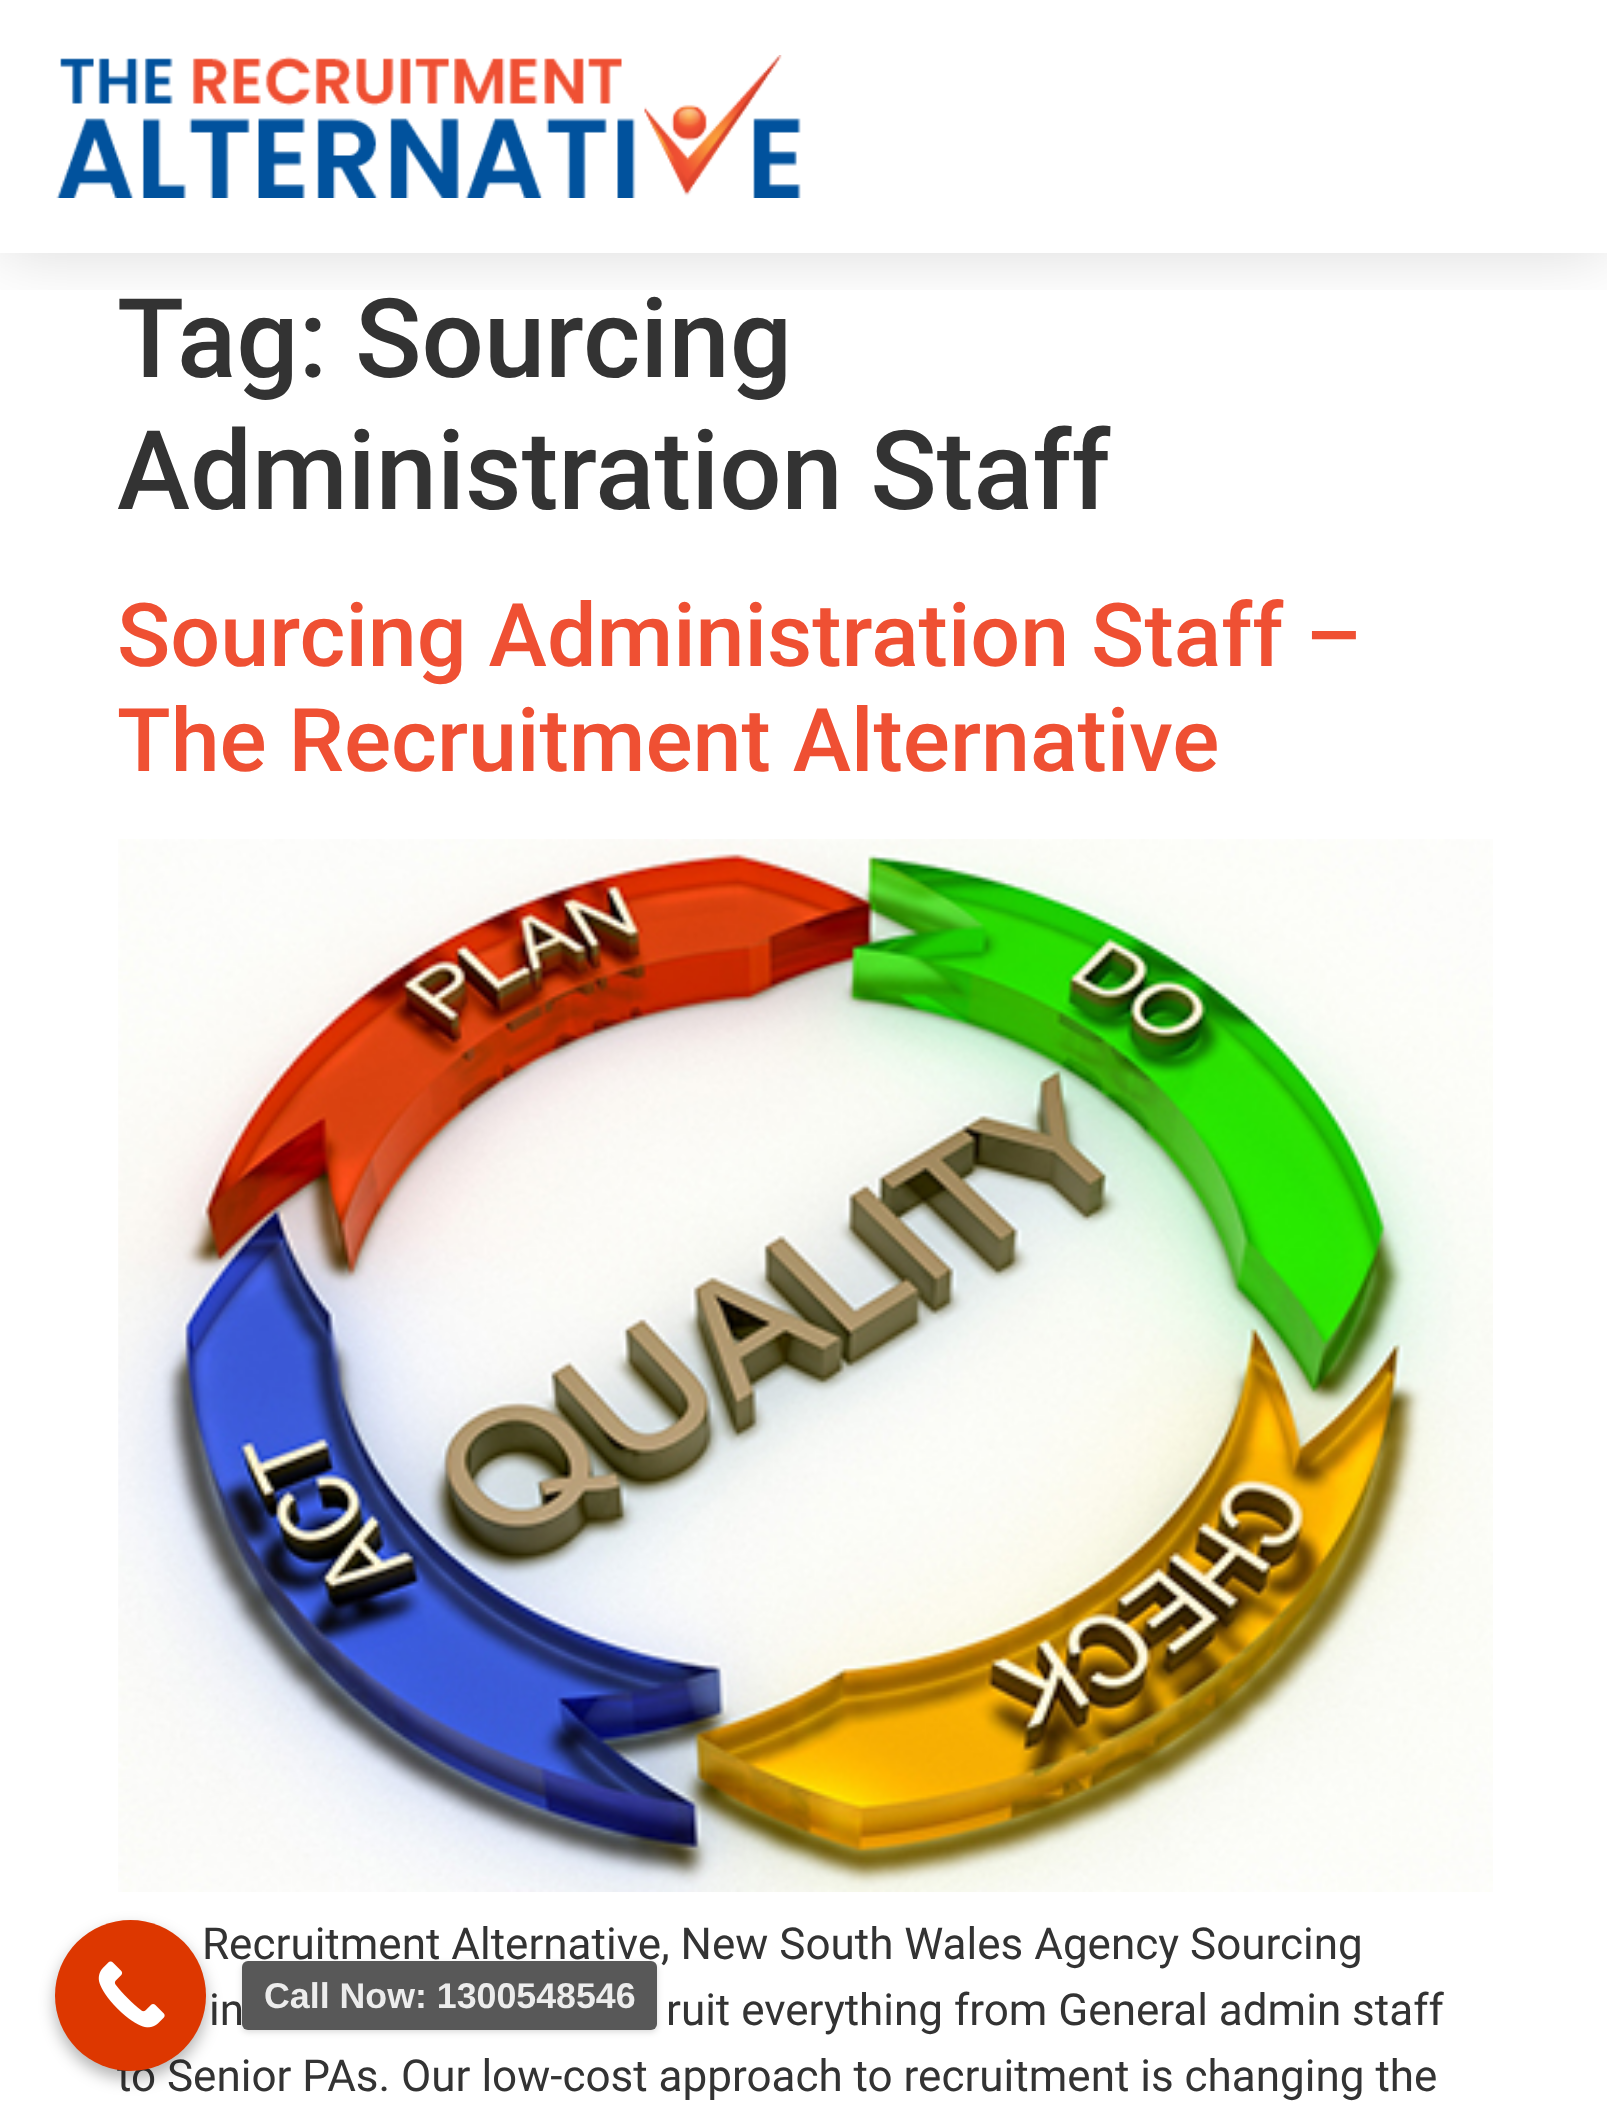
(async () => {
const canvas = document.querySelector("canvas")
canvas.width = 1607
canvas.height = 2110
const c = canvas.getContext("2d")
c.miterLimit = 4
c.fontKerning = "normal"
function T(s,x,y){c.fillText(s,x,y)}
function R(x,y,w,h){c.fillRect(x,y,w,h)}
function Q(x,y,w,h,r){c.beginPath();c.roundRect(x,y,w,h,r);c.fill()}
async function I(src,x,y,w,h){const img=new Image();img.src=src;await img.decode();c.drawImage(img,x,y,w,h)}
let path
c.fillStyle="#fff"
R(0,0,1607,2110)
c.save()
c.beginPath()
c.rect(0,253,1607,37)
c.clip()
c.fillStyle="#00000026"
c.filter="blur(33px)"
c.beginPath()
c.rect(0,0,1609,253)
c.fill()
c.filter="none"
c.restore()
await I("1.png",56,55,745,143)
c.font="500 110px Roboto"
c.fillStyle="#333"
T("Tag: Sourcing",117,377)
T("Administration Staff",117,509)
c.font="500 88px Roboto"
c.fillStyle="#ef5033"
T("Sourcing Administration Staff –",117,666)
T("The Recruitment Alternative",117,771)
await I("2.png",118,839,1375,1053)
c.font="44px Roboto"
c.fillStyle="#333"
T("Recruitment Alternative, New South Wales Agency Sourcing",202,1959)
T("in",209,2025)
T("ruit everything from General admin staff",666,2025)
T("to Senior PAs. Our low-cost approach to recruitment is changing the",117,2091)
c.fillStyle="#0000004d"
c.filter="blur(8px)"
c.beginPath()
c.roundRect(55,1928,151,151,75.5)
c.fill()
c.filter="none"
c.fillStyle="#dd3700"
c.beginPath()
c.arc(130.5,1995.5,75.5,0,7)
c.fill()
await I("3.png",98,1961,67,67)
c.save()
path = new Path2D("M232 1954h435v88h-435zm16 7h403c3.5 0 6 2.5 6 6v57c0 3.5-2.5 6-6 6h-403c-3.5 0-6-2.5-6-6v-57c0-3.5 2.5-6 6-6z")
c.clip(path,"evenodd")
c.fillStyle="#00000026"
c.filter="blur(3px)"
c.beginPath()
c.roundRect(242,1964,415,68,6)
c.fill()
c.filter="none"
c.restore()
c.fillStyle="#464646e6"
Q(242,1961,415,69,6)
c.font="bold 35.75px Liberation Sans"
c.fillStyle="#ececec"
T("Call Now: 1300548546",264,2008)
})()
